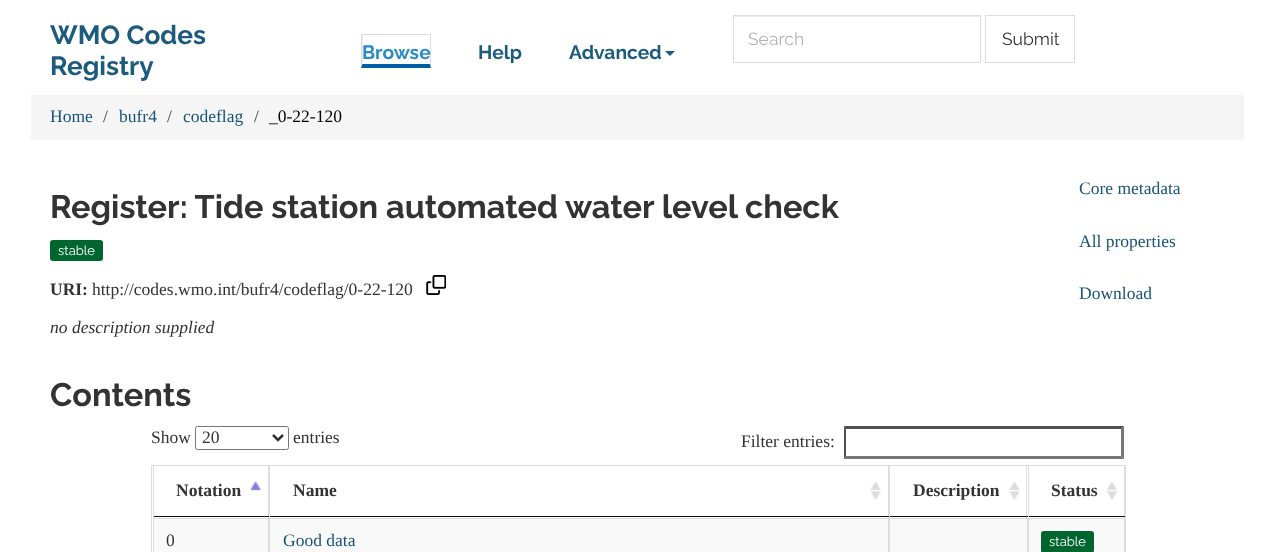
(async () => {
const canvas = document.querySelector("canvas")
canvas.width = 1274
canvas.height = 552
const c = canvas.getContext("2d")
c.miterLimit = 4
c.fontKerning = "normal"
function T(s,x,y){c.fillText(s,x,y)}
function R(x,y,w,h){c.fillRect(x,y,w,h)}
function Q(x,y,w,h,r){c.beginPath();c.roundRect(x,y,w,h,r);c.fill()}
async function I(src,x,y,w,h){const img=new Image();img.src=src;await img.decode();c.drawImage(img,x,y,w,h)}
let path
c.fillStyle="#fff"
R(0,0,1274,552)
c.font="bold 26.25px Raleway"
c.fillStyle="#1c5b7d"
T("WMO Codes",50,44)
T("Registry",50,75)
c.fillStyle="#ececec"
R(734,16,246,1)
c.strokeStyle="#ddd"
c.strokeRect(733.5,15.5,247,47)
c.font="17.5px Raleway"
c.fillStyle="#b3b3b3"
T("Search",748,45)
c.strokeRect(985.5,15.5,89,47)
c.fillStyle="#333"
T("Submit",1002,45)
c.fillStyle="#ddd"
R(361,34,70,1)
path = new Path2D("M431 34v33.5l-1-3.5v-29z")
c.fill(path)
c.fillStyle="#005ea5"
path = new Path2D("M431 68h-70l1-4h68z")
c.fill(path)
c.fillStyle="#ddd"
path = new Path2D("M361 67.5v-33.5l1.5 1v29z")
c.fill(path)
c.font="bold 19.25px Raleway"
c.fillStyle="#2b8cc4"
T("Browse",362,59)
c.fillStyle="#1c5b7d"
T("Help",478,59)
T("Advanced",569,59)
path = new Path2D("M665 51h10l-5 5z")
c.fill(path)
c.fillStyle="#f5f5f5"
R(31,95,1213,45)
c.font="17.5px Liberation Serif"
c.fillStyle="#195476"
T("Home",50,122)
c.fillStyle="#424242"
T("/",103,122)
c.fillStyle="#195476"
T("bufr4",119,122)
c.fillStyle="#424242"
T("/",167,122)
c.fillStyle="#195476"
T("codeflag",183,122)
c.fillStyle="#424242"
T("/",254,122)
c.fillStyle="#000"
T("_0-22-120",269,122)
c.font="bold 32.5px Raleway"
c.fillStyle="#333"
T("Register: Tide station automated water level check",50,218)
c.fillStyle="#00662e"
Q(50,240,53,21,3)
c.font="13px Raleway"
c.fillStyle="#fff"
T("stable",58,255)
c.font="bold 17.5px Liberation Serif"
c.fillStyle="#333"
T("URI:",50,295)
c.font="17.5px Liberation Serif"
T("http://codes.wmo.int/bufr4/codeflag/0-22-120",92,295)
await I("1.png",426,275,20,20)
c.font="italic 17.5px Liberation Serif"
T("no description supplied",50,333)
c.font="17.5px Liberation Serif"
c.fillStyle="#195476"
T("Core metadata",1079,194)
T("All properties",1079,247)
T("Download",1079,299)
c.font="bold 32.5px Raleway"
c.fillStyle="#333"
T("Contents",50,406)
c.font="17.5px Liberation Serif"
T("Show",151,443)
c.beginPath()
c.roundRect(195.5,426.5,93,23,2)
c.strokeStyle="#767676"
c.stroke()
path = new Path2D("M273 435l5 5l5-5")
c.strokeStyle="#333"
c.lineWidth=2.5
c.stroke(path)
T("20",202,443)
T("entries",293,443)
T("Filter entries:",741,447)
c.fillStyle="#4f4f4f"
path = new Path2D("M844 426h280l-3 3h-275z")
c.fill(path)
c.fillStyle="#767676"
path = new Path2D("M1124 426v33l-3-3v-27z")
c.fill(path)
path = new Path2D("M1124 459h-280l2-3h275z")
c.fill(path)
c.fillStyle="#4f4f4f"
path = new Path2D("M844 459v-33l2 3v27z")
c.fill(path)
c.fillStyle="#ddd"
R(151,465,975,1)
R(1125,465,1,87)
R(151,465,1,87)
await I("2.png",250,481,12,10)
R(268,466,1,52)
c.fillStyle="#111"
R(153,516,116,1)
c.fillStyle="#ddd"
R(153,466,1,52)
c.font="bold 17.5px Liberation Serif"
c.fillStyle="#333"
T("Notation",176,496)
await I("3.png",870,481,11,19)
c.fillStyle="#ddd"
R(888,466,1,52)
c.fillStyle="#111"
R(269,516,620,1)
c.fillStyle="#ddd"
R(269,466,1,52)
c.fillStyle="#333"
T("Name",293,496)
await I("4.png",1009,481,11,19)
c.fillStyle="#ddd"
R(1026,466,1,52)
c.fillStyle="#111"
R(889,516,139,1)
c.fillStyle="#ddd"
R(889,466,1,52)
c.fillStyle="#333"
T("Description",913,496)
await I("5.png",1106,481,12,19)
c.fillStyle="#ddd"
R(1124,466,1,52)
c.fillStyle="#111"
R(1028,516,97,1)
c.fillStyle="#ddd"
R(1028,466,1,52)
c.fillStyle="#333"
T("Status",1051,496)
c.fillStyle="#f9f9f9"
R(154,519,970,33)
c.strokeStyle="#ddd"
c.lineWidth=1
c.strokeRect(153.5,518.5,115,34)
c.font="17.5px Liberation Serif"
c.fillStyle="#333"
T("0",166,546)
c.strokeRect(269.5,518.5,619,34)
c.fillStyle="#195476"
T("Good data",283,546)
c.strokeRect(889.5,518.5,138,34)
c.strokeRect(1028.5,518.5,96,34)
c.fillStyle="#00662e"
Q(1041,531,53,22,3)
c.font="13px Raleway"
c.fillStyle="#fff"
T("stable",1049,546)
})()
